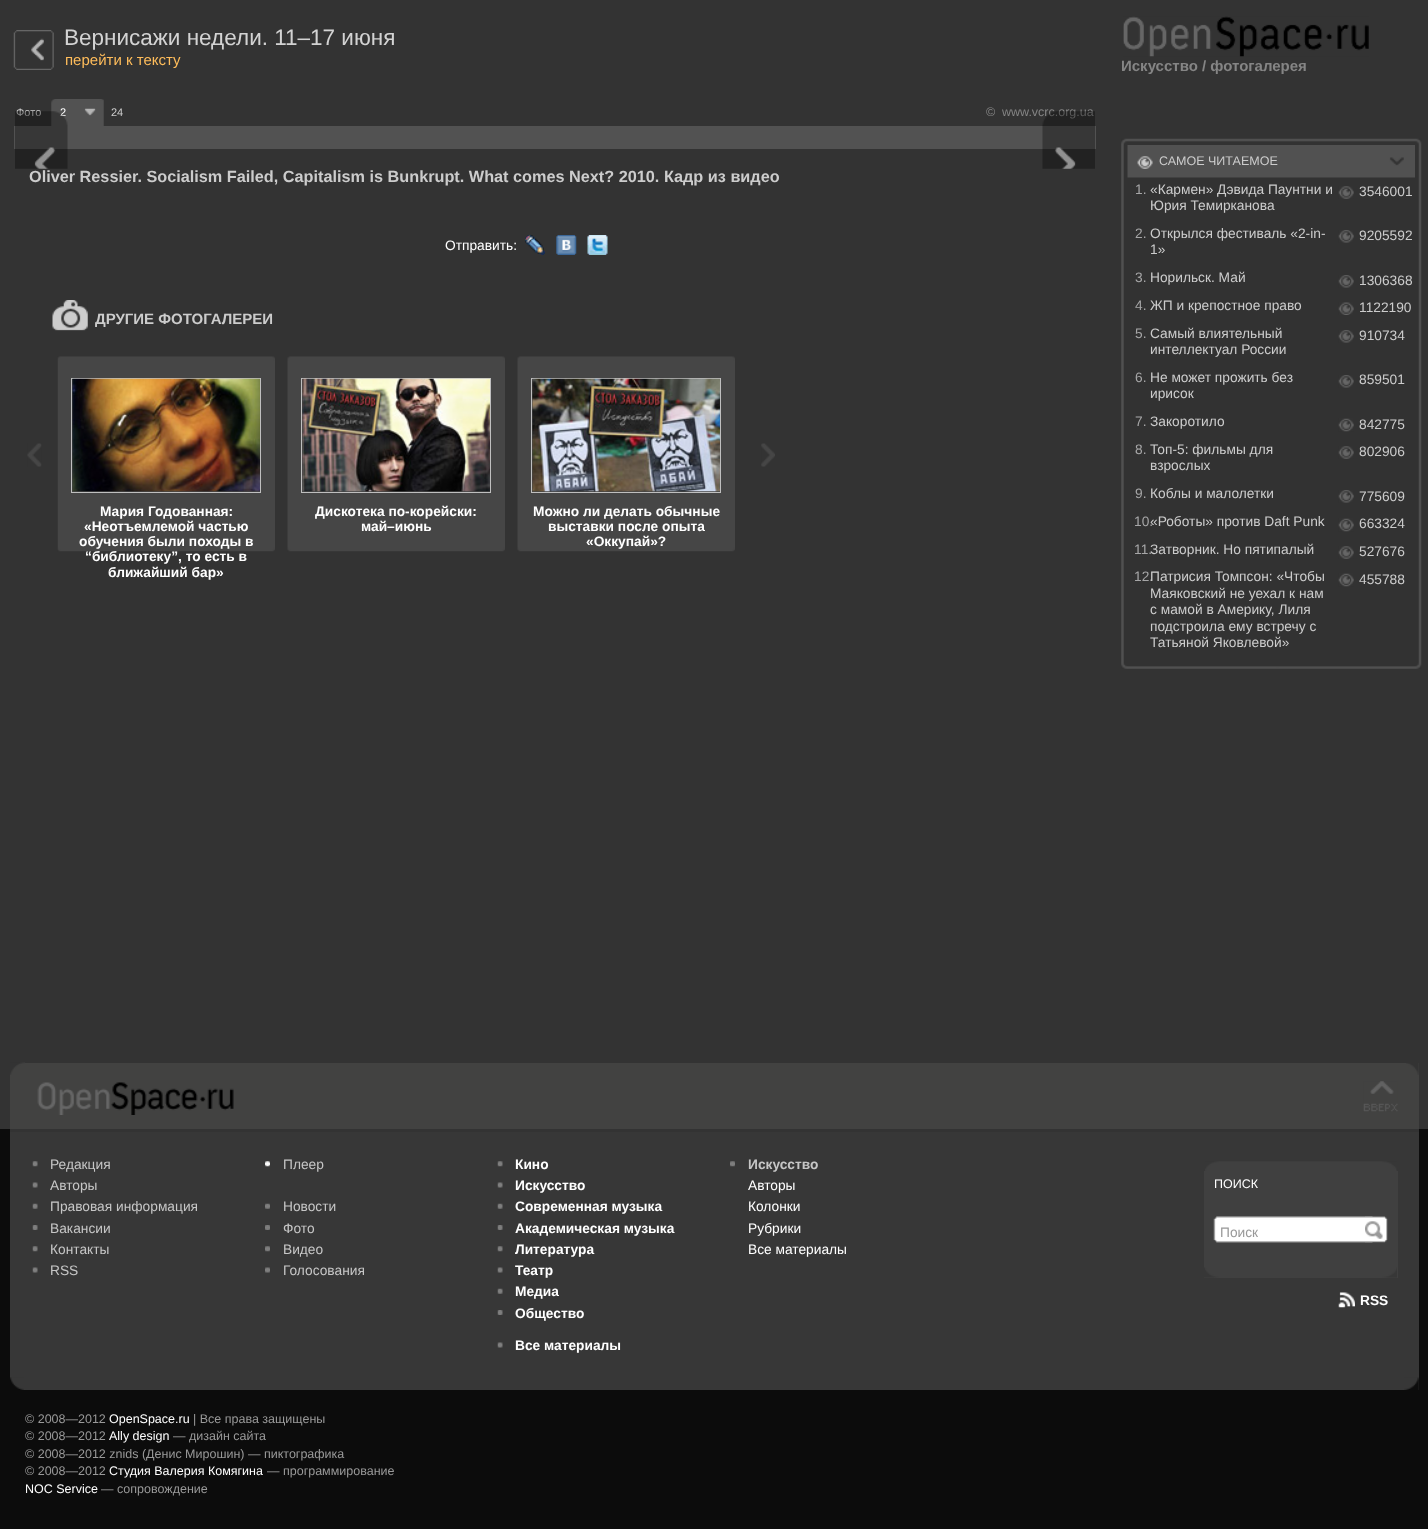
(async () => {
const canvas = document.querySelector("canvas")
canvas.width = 1428
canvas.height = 1529
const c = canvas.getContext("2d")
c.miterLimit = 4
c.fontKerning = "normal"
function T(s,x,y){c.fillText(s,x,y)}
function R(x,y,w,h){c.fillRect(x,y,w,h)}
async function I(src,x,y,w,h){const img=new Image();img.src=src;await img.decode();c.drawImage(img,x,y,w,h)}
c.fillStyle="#333"
R(0,0,1428,1529)
await I("1.png",13,30,41,40)
c.font="22.5px Liberation Sans"
c.fillStyle="#d3d3d3"
T("Вернисажи недели. 11–17 июня",64,45)
c.font="15px Liberation Sans"
c.fillStyle="#ffbd5b"
T("перейти к тексту",65,65)
c.font="11px Liberation Sans"
c.fillStyle="#ccc"
T("Фото",16,116)
await I("2.png",51,99,53,27)
c.fillStyle="#fff"
T("2",60,116)
c.fillStyle="#ccc"
T("24",111,116)
c.font="12.5px Liberation Sans"
c.fillStyle="#858585"
T("©",986,116)
T("www.vcrc.org.ua",1002,116)
c.fillStyle="#525252"
R(14,126,1082,23)
await I("3.png",15,111,53,58)
await I("4.png",1042,111,53,58)
c.font="bold 16.25px Liberation Sans"
c.fillStyle="#ccc"
T("Oliver Ressier. Socialism Failed, Capitalism is Bunkrupt. What comes Next? 2010. Кадр из видео",29,182)
c.font="13.75px Liberation Sans"
c.fillStyle="#fff"
T("Отправить:",445,250)
await I("5.png",525,235,20,20)
await I("6.png",556,235,21,20)
await I("7.png",587,235,21,20)
await I("8.png",52,300,36,31)
await I("9.png",87,311,1,18)
c.font="bold 15px Liberation Sans"
c.fillStyle="#ccc"
T("ДРУГИЕ ФОТОГАЛЕРЕИ",95,324)
await I("10.png",27,443,15,24)
await I("11.png",761,443,14,24)
await I("12.png",57,356,218,196)
c.strokeStyle="#bfbfbf"
c.strokeRect(71.5,378.5,189,114)
await I("13.png",72,378,188,114)
c.font="bold 13.75px Liberation Sans"
c.fillStyle="#fff"
T("Мария Годованная:",100,516)
T("«Неотъемлемой частью",84,531)
T("обучения были походы в",79,546)
T("“библиотеку”, то есть в",85,561)
T("ближайший бар»",108,577)
await I("14.png",287,356,218,196)
c.strokeRect(301.5,378.5,189,114)
await I("15.png",302,378,188,114)
T("Дискотека по-корейски:",315,516)
T("май–июнь",361,531)
await I("16.png",517,356,218,196)
c.strokeRect(531.5,378.5,189,114)
await I("17.png",532,378,188,114)
T("Можно ли делать обычные",533,516)
T("выставки после опыта",548,531)
T("«Оккупай»?",586,546)
await I("18.png",1123,16,246,41)
c.font="bold 15px Liberation Sans"
c.fillStyle="#858585"
T("Искусство / фотогалерея",1121,71)
await I("19.png",1121,138,301,7)
await I("20.png",1121,145,301,524)
await I("21.png",1127,145,288,33)
c.font="12.5px Liberation Sans"
c.fillStyle="#ccc"
T("САМОЕ ЧИТАЕМОЕ",1159,165)
c.font="13.75px Liberation Sans"
c.fillStyle="#a6a6a7"
T("1.",1135,194)
c.fillStyle="#ccc"
T("«Кармен» Дэвида Паунтни и",1150,194)
T("Юрия Темирканова",1150,210)
await I("22.png",1338,186,16,13)
T("3546001",1359,196)
c.fillStyle="#a6a6a7"
T("2.",1135,238)
c.fillStyle="#ccc"
T("Открылся фестиваль «2-in-",1150,238)
T("1»",1150,254)
await I("23.png",1338,230,16,13)
T("9205592",1359,240)
c.fillStyle="#a6a6a7"
T("3.",1135,282)
c.fillStyle="#ccc"
T("Норильск. Май",1150,282)
await I("23.png",1338,275,16,13)
T("1306368",1359,285)
c.fillStyle="#a6a6a7"
T("4.",1135,310)
c.fillStyle="#ccc"
T("ЖП и крепостное право",1150,310)
await I("24.png",1338,302,16,13)
T("1122190",1359,312)
c.fillStyle="#a6a6a7"
T("5.",1135,338)
c.fillStyle="#ccc"
T("Самый влиятельный",1150,338)
T("интеллектуал России",1150,354)
await I("23.png",1338,330,16,13)
T("910734",1359,340)
c.fillStyle="#a6a6a7"
T("6.",1135,382)
c.fillStyle="#ccc"
T("Не может прожить без",1150,382)
T("ирисок",1150,398)
await I("23.png",1338,375,16,13)
T("859501",1359,384)
c.fillStyle="#a6a6a7"
T("7.",1135,426)
c.fillStyle="#ccc"
T("Закоротило",1150,426)
await I("25.png",1338,418,16,14)
T("842775",1359,429)
c.fillStyle="#a6a6a7"
T("8.",1135,454)
c.fillStyle="#ccc"
T("Топ-5: фильмы для",1150,454)
T("взрослых",1150,470)
await I("22.png",1338,446,16,13)
T("802906",1359,456)
c.fillStyle="#a6a6a7"
T("9.",1135,498)
c.fillStyle="#ccc"
T("Коблы и малолетки",1150,498)
await I("23.png",1338,490,16,13)
T("775609",1359,501)
c.fillStyle="#a6a6a7"
T("10.",1134,526)
c.fillStyle="#ccc"
T("«Роботы» против Daft Punk",1150,526)
await I("25.png",1338,518,16,14)
T("663324",1359,528)
c.fillStyle="#a6a6a7"
T("11.",1134,554)
c.fillStyle="#ccc"
T("Затворник. Но пятипалый",1150,554)
await I("22.png",1338,546,16,13)
T("527676",1359,556)
c.fillStyle="#a6a6a7"
T("12.",1134,581)
c.fillStyle="#ccc"
T("Патрисия Томпсон: «Чтобы",1150,581)
T("Маяковский не уехал к нам",1150,598)
T("с мамой в Америку, Лиля",1150,614)
T("подстроила ему встречу с",1150,631)
T("Татьяной Яковлевой»",1150,647)
await I("25.png",1338,573,16,14)
T("455788",1359,584)
c.fillStyle="#424241"
R(10,1063,1409,66)
await I("26.png",10,1062,15,13)
await I("27.png",1406,1063,13,12)
await I("28.png",37,1082,197,33)
await I("29.png",1363,1081,35,31)
c.fillStyle="#0c0c0c"
R(0,1390,1428,139)
c.fillStyle="#373737"
R(10,1132,1409,258)
await I("30.png",1404,1377,15,13)
c.fillStyle="#0c0c0c"
R(1419,1129,9,261)
R(0,1129,10,261)
await I("31.png",10,1377,14,13)
await I("32.png",32,1161,6,6)
c.fillStyle="#c6c6c6"
T("Редакция",50,1169)
await I("33.png",32,1182,6,6)
T("Авторы",50,1190)
await I("34.png",32,1203,6,6)
T("Правовая информация",50,1211)
await I("35.png",32,1225,6,5)
T("Вакансии",50,1233)
await I("32.png",32,1246,6,6)
T("Контакты",50,1254)
await I("33.png",32,1267,6,6)
T("RSS",50,1275)
await I("36.png",265,1161,5,6)
T("Плеер",283,1169)
await I("37.png",265,1203,5,6)
T("Новости",283,1211)
await I("38.png",265,1225,5,5)
T("Фото",283,1233)
await I("39.png",265,1246,5,6)
T("Видео",283,1254)
await I("40.png",265,1267,5,6)
T("Голосования",283,1275)
await I("32.png",497,1161,6,6)
c.font="bold 13.75px Liberation Sans"
c.fillStyle="#fff"
T("Кино",515,1169)
await I("33.png",497,1182,6,6)
T("Искусство",515,1190)
await I("34.png",497,1203,6,6)
T("Современная музыка",515,1211)
await I("35.png",497,1225,6,5)
T("Академическая музыка",515,1233)
await I("32.png",497,1246,6,6)
T("Литература",515,1254)
await I("33.png",497,1267,6,6)
T("Театр",515,1275)
await I("34.png",497,1288,6,6)
T("Медиа",515,1296)
await I("35.png",497,1310,6,5)
T("Общество",515,1318)
await I("33.png",497,1342,6,6)
T("Все материалы",515,1350)
await I("39.png",730,1161,5,6)
c.fillStyle="#c6c6c6"
T("Искусство",748,1169)
c.font="13.75px Liberation Sans"
c.fillStyle="#fff"
T("Авторы",748,1190)
T("Колонки",748,1211)
T("Рубрики",748,1233)
T("Все материалы",748,1254)
await I("41.png",1205,1161,192,10)
c.fillStyle="#404040"
R(1204,1171,194,107)
await I("42.png",1204,1267,193,11)
c.font="12.5px Liberation Sans"
c.fillStyle="#fff"
T("ПОИСК",1214,1188)
await I("43.png",1213,1216,160,27)
c.font="13.75px Liberation Sans"
c.fillStyle="#999"
T("Поиск",1220,1237)
await I("44.png",1365,1216,23,27)
await I("45.png",1338,1292,17,16)
c.font="bold 13.75px Liberation Sans"
c.fillStyle="#fff"
T("RSS",1360,1305)
c.font="12.5px Liberation Sans"
c.fillStyle="#999"
T("© 2008—2012",25,1423)
c.fillStyle="#fff"
T("OpenSpace.ru",109,1423)
c.fillStyle="#999"
T("| Все права защищены",193,1423)
T("© 2008—2012",25,1440)
c.fillStyle="#fff"
T("Ally design",109,1440)
c.fillStyle="#999"
T("— дизайн сайта",173,1440)
T("© 2008—2012 znids (Денис Мирошин) — пиктографика",25,1458)
T("© 2008—2012",25,1475)
c.fillStyle="#fff"
T("Студия Валерия Комягина",109,1475)
c.fillStyle="#999"
T("— программирование",267,1475)
c.fillStyle="#fff"
T("NOC Service",25,1493)
c.fillStyle="#999"
T("— сопровождение",101,1493)
})()
